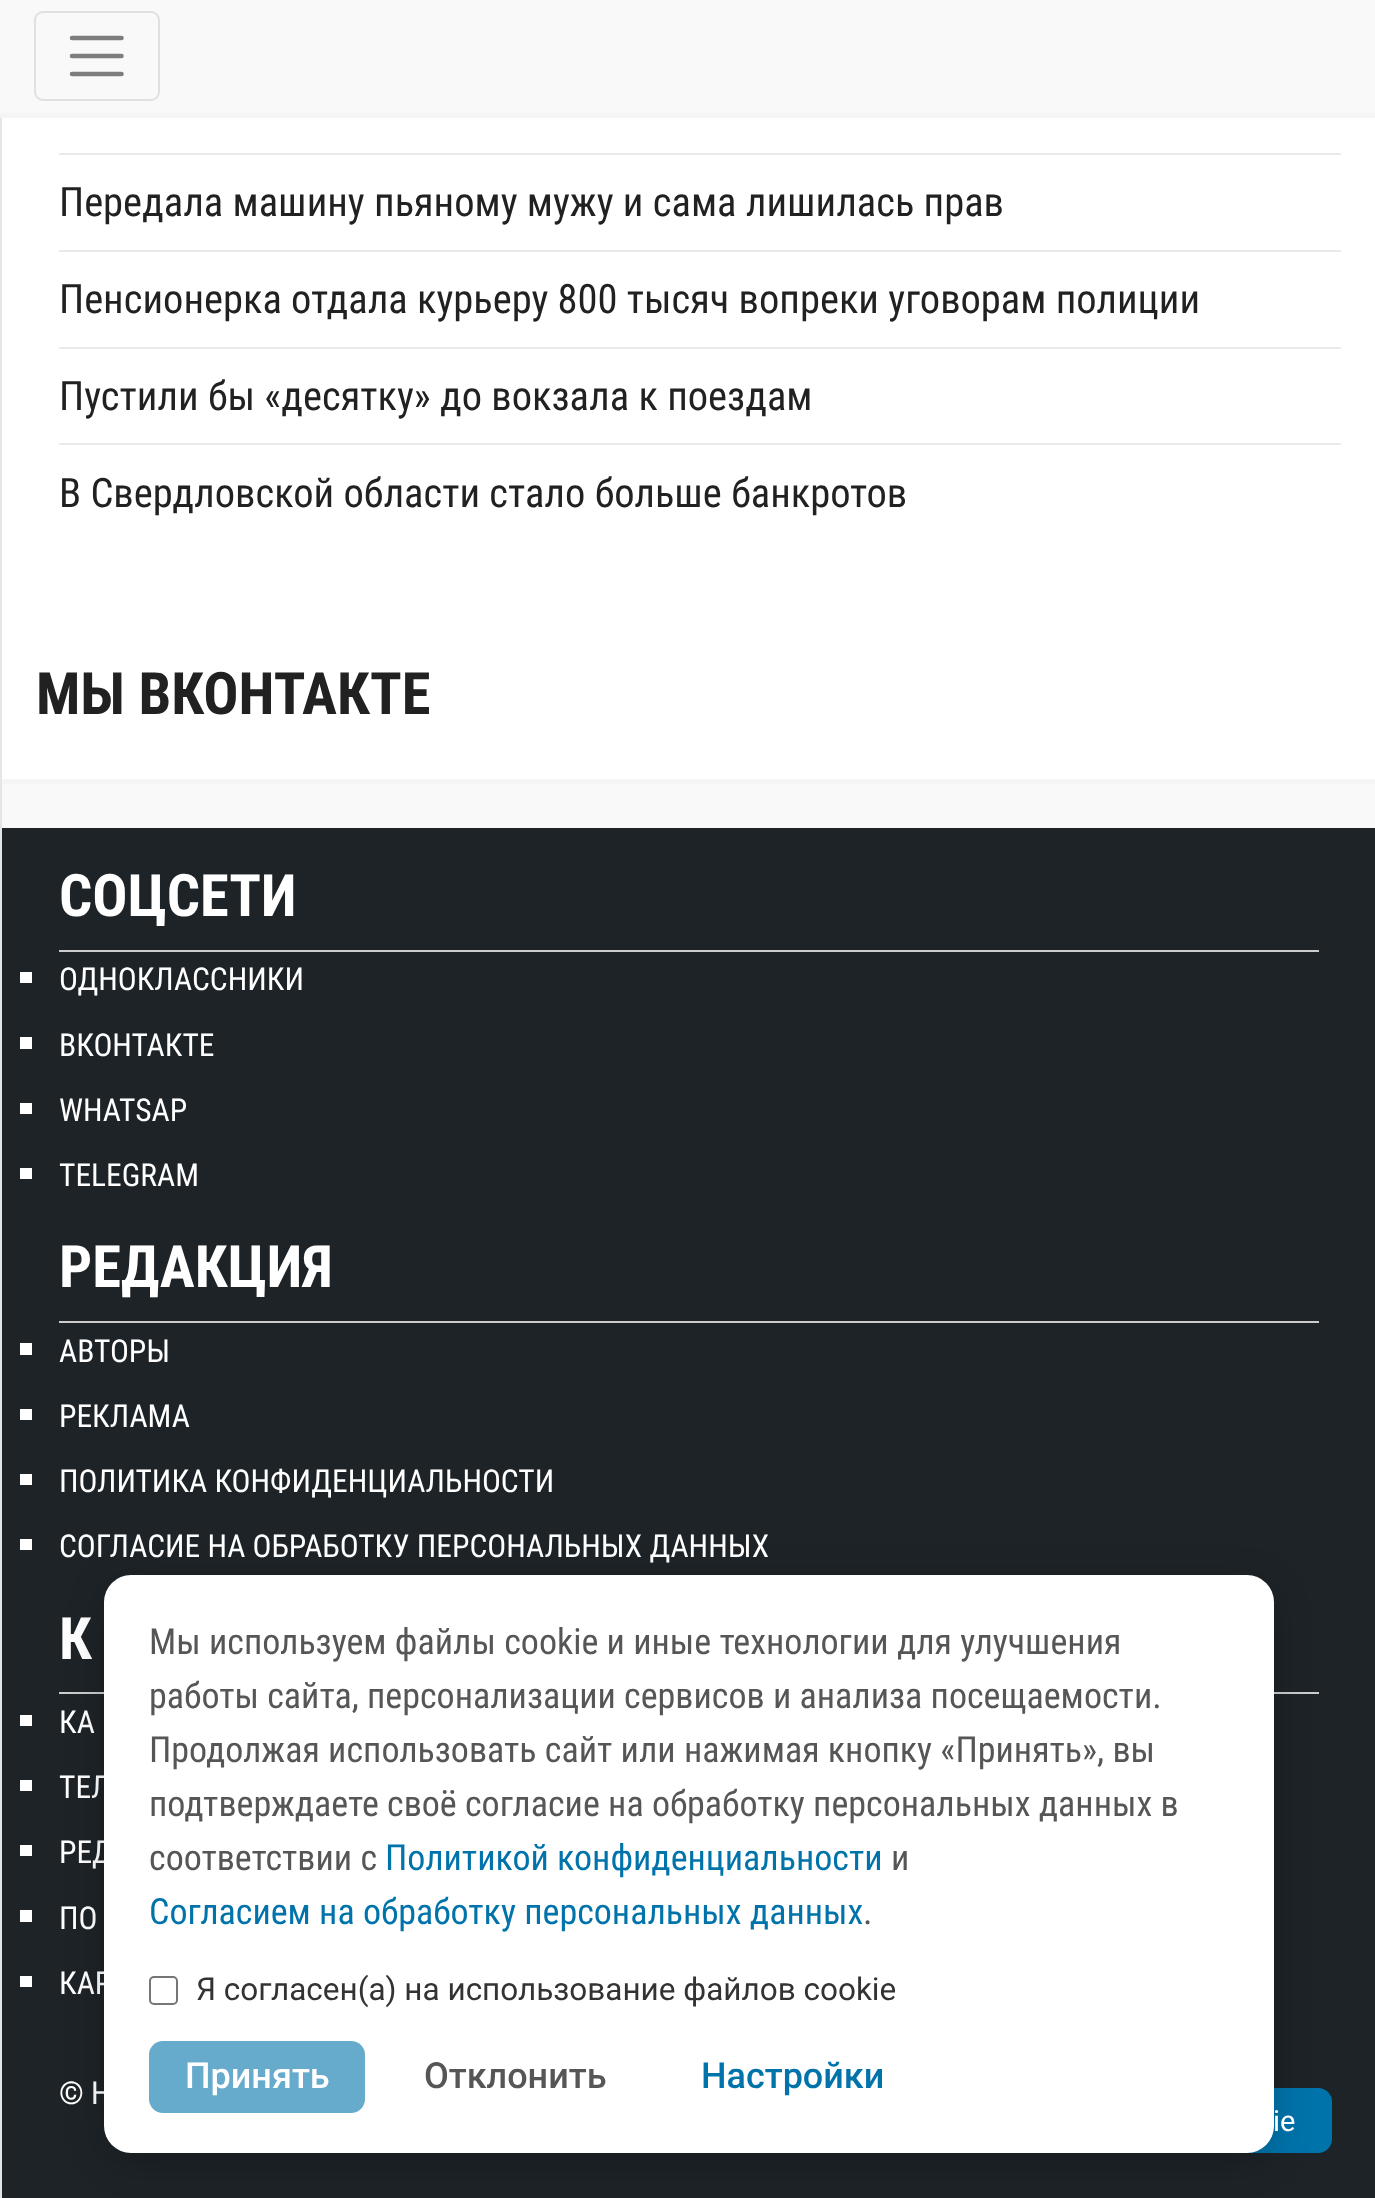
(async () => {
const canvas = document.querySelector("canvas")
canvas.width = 1375
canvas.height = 2198
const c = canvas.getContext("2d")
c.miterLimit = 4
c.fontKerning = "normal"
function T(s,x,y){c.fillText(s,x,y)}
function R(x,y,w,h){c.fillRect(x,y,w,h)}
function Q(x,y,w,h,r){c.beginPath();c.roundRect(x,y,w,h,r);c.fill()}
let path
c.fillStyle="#fff"
R(0,0,1375,2198)
c.fillStyle="#e5e5e5"
R(0,118,2,2080)
c.fillStyle="#f9f9f9"
R(0,0,1375,113)
c.fillStyle="#f5f5f5"
R(0,113,1375,5)
c.beginPath()
c.roundRect(35,12,124,88,8)
c.strokeStyle="#e0e0e0"
c.lineWidth=2
c.stroke()
path = new Path2D("M72 38h49.5m-49.5 18h49.5m-49.5 18h49.5")
c.strokeStyle="#7d7d7d"
c.lineWidth=4.5
c.lineCap="round"
c.stroke(path)
c.fillStyle="#e9e9e9"
R(59,153,1282,2)
R(59,250,1282,2)
c.font="40.5px Roboto Condensed"
c.fillStyle="#212121"
T("Передала машину пьяному мужу и сама лишилась прав",59,216)
c.fillStyle="#e9e9e9"
R(59,347,1282,2)
c.fillStyle="#212121"
T("Пенсионерка отдала курьеру 800 тысяч вопреки уговорам полиции",59,313)
c.fillStyle="#e9e9e9"
R(59,443,1282,2)
c.fillStyle="#212121"
T("Пустили бы «десятку» до вокзала к поездам",59,410)
T("В Свердловской области стало больше банкротов",59,507)
c.font="bold 58.5px Roboto Condensed"
T("МЫ ВКОНТАКТЕ",36,714)
c.fillStyle="#f9f9f9"
R(2,784,1373,44)
c.fillStyle="#f5f5f5"
R(2,779,1373,5)
c.fillStyle="#1d2327"
R(2,828,1373,1370)
c.fillStyle="#fff"
T("СОЦСЕТИ",59,916)
c.fillStyle="#ccc"
R(59,950,1260,2)
c.fillStyle="#fff"
R(20,972,12,11)
c.font="31.5px Roboto Condensed"
T("ОДНОКЛАССНИКИ",59,990)
R(20,1037,12,12)
T("ВКОНТАКТЕ",59,1056)
R(20,1103,12,11)
T("WHATSAP",59,1121)
R(20,1168,12,11)
T("TELEGRAM",59,1186)
c.font="bold 58.5px Roboto Condensed"
T("РЕДАКЦИЯ",59,1287)
c.fillStyle="#ccc"
R(59,1321,1260,2)
c.fillStyle="#fff"
R(20,1343,12,12)
c.font="31.5px Roboto Condensed"
T("АВТОРЫ",59,1362)
R(20,1409,12,11)
T("РЕКЛАМА",59,1427)
R(20,1474,12,11)
T("ПОЛИТИКА КОНФИДЕНЦИАЛЬНОСТИ",59,1492)
R(20,1539,12,11)
T("СОГЛАСИЕ НА ОБРАБОТКУ ПЕРСОНАЛЬНЫХ ДАННЫХ",59,1557)
c.font="bold 58.5px Roboto Condensed"
T("К",59,1659)
c.fillStyle="#ccc"
R(59,1692,1260,2)
c.fillStyle="#fff"
R(20,1715,12,11)
c.font="31.5px Roboto Condensed"
T("КА",59,1733)
R(20,1780,12,11)
T("ТЕЛ",59,1798)
R(20,1845,12,11)
T("РЕД",59,1863)
R(20,1910,12,12)
T("ПО",59,1929)
R(20,1976,12,11)
T("КАР",59,1994)
T("© Н",59,2104)
c.fillStyle="#0073aa"
Q(1017,2088,315,65,14)
c.fillStyle="#00000033"
c.filter="blur(18px)"
c.beginPath()
c.roundRect(104,1584,1170,578,27)
c.fill()
c.filter="none"
c.fillStyle="#fff"
Q(104,1575,1170,578,27)
c.font="36px Roboto Condensed"
c.fillStyle="#565656"
T("Мы используем файлы cookie и иные технологии для улучшения",149,1654)
T("работы сайта, персонализации сервисов и анализа посещаемости.",149,1708)
T("Продолжая использовать сайт или нажимая кнопку «Принять», вы",149,1762)
T("подтверждаете своё согласие на обработку персональных данных в",149,1816)
T("соответствии с",149,1870)
c.fillStyle="#0073aa"
T("Политикой конфиденциальности",385,1870)
c.fillStyle="#565656"
T("и",891,1870)
c.fillStyle="#0073aa"
T("Согласием на обработку персональных данных",149,1924)
c.fillStyle="#565656"
T(".",863,1924)
c.beginPath()
c.roundRect(150,1977,27,27,4)
c.strokeStyle="#767676"
c.lineWidth=2
c.stroke()
c.font="31.5px Roboto"
c.fillStyle="#333"
T("Я согласен(а) на использование файлов cookie",196,2000)
c.fillStyle="#66abcc"
Q(149,2041,216,72,14)
c.font="500 36px Roboto"
c.fillStyle="#fff"
T("Принять",185,2088)
c.fillStyle="#565656"
T("Отклонить",424,2088)
c.fillStyle="#0073aa"
T("Настройки",701,2088)
c.font="29px Roboto"
c.fillStyle="#fff"
T("ie",1273,2131)
})()
